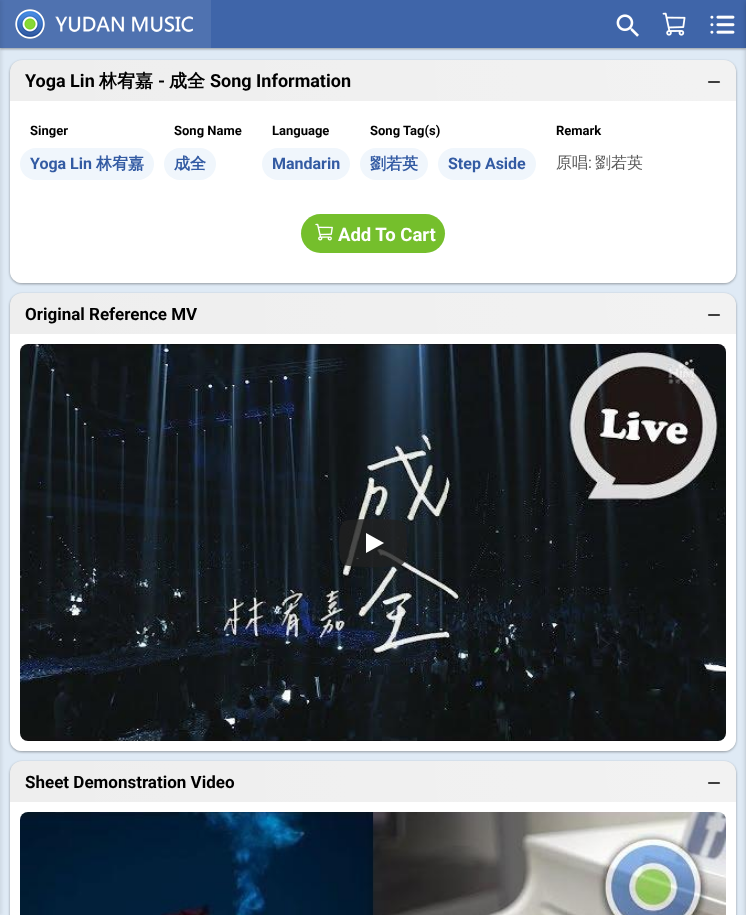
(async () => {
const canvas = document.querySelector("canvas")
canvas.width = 746
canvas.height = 915
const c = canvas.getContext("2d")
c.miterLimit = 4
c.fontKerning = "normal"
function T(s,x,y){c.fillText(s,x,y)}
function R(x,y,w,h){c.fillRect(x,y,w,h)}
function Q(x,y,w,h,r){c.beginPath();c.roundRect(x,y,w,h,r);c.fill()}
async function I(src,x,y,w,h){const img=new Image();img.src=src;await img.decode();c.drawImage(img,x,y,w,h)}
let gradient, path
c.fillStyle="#dfeaf5"
R(0,0,746,915)
c.fillStyle="#0000003d"
c.filter="blur(1px)"
c.beginPath()
c.rect(0,1,746,48)
c.fill()
c.filter="none"
c.fillStyle="#0000001f"
c.filter="blur(1.5px)"
c.beginPath()
c.rect(0,1,746,48)
c.fill()
c.filter="none"
c.fillStyle="#3f65a9"
R(211,0,535,48)
c.fillStyle="#4f72b0"
R(0,0,211,48)
await I("1.png",15,9,30,30)
await I("2.png",55,16,138,16)
await I("3.png",616,14,23,23)
await I("4.png",662,12,24,24)
await I("5.png",710,15,25,19)
c.fillStyle="#00000012"
c.filter="blur(1.5px)"
c.beginPath()
c.rect(-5,0,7,915)
c.fill()
c.filter="none"
c.fillStyle="#0000003d"
c.filter="blur(1px)"
c.beginPath()
c.roundRect(10,61,726,223,12)
c.fill()
c.filter="none"
c.fillStyle="#0000001f"
c.filter="blur(1.5px)"
c.beginPath()
c.roundRect(10,61,726,223,12)
c.fill()
c.filter="none"
c.fillStyle="#eee"
Q(10,60,726,223,12)
path = new Path2D("M709 82h10")
c.strokeStyle="#000"
c.lineWidth=2.2
c.lineCap="round"
c.stroke(path)
gradient = c.createRadialGradient(736,60,0,736,60,727)
gradient.addColorStop(0,"#ffffff40")
gradient.addColorStop(1,"#ffffff00")
c.fillStyle = gradient
c.beginPath()
c.roundRect(10,60,726,41,[12,12,0,0])
c.fill()
c.font="bold 18px Roboto"
c.fillStyle="#000"
T("Yoga Lin",25,87)
c.font="bold 18px WenQuanYi Zen Hei"
T("林宥嘉",99,87)
c.font="bold 18px Roboto"
T("-",158,87)
c.font="bold 18px WenQuanYi Zen Hei"
T("成全",169,87)
c.font="bold 18px Roboto"
T("Song Information",210,87)
c.fillStyle="#fff"
c.beginPath()
c.roundRect(10,101,726,182,[0,0,12,12])
c.fill()
c.font="bold 13px Roboto"
c.fillStyle="#000"
T("Singer",30,135)
c.fillStyle="#f0f6fc"
Q(20,148,134,32,16)
c.font="bold 16px Roboto"
c.fillStyle="#335ba3"
T("Yoga Lin",30,169)
c.font="bold 16px WenQuanYi Zen Hei"
T("林宥嘉",96,169)
c.font="bold 13px Roboto"
c.fillStyle="#000"
T("Song Name",174,135)
c.fillStyle="#f0f6fc"
Q(164,148,52,32,16)
c.font="bold 16px WenQuanYi Zen Hei"
c.fillStyle="#335ba3"
T("成全",174,169)
c.font="bold 13px Roboto"
c.fillStyle="#000"
T("Language",272,135)
c.fillStyle="#f0f6fc"
Q(262,148,88,32,16)
c.font="bold 16px Roboto"
c.fillStyle="#335ba3"
T("Mandarin",272,169)
c.font="bold 13px Roboto"
c.fillStyle="#000"
T("Song Tag(s)",370,135)
c.fillStyle="#f0f6fc"
Q(360,148,68,32,16)
c.font="bold 16px WenQuanYi Zen Hei"
c.fillStyle="#335ba3"
T("劉若英",370,169)
c.fillStyle="#f0f6fc"
Q(438,148,98,32,16)
c.font="bold 16px Roboto"
c.fillStyle="#335ba3"
T("Step Aside",448,169)
c.font="bold 13px Roboto"
c.fillStyle="#000"
T("Remark",556,135)
c.font="500 16px WenQuanYi Zen Hei"
c.fillStyle="#5a5a5a"
T("原唱",556,168)
c.font="16px Roboto"
T(":",588,168)
c.font="500 16px WenQuanYi Zen Hei"
T("劉若英",595,168)
c.fillStyle="#75bf2c"
Q(301,214,144,39,19.5)
await I("6.png",315,223,18,18)
c.font="bold 18.5px Roboto"
c.fillStyle="#fff"
T("Add To Cart",338,241)
c.fillStyle="#0000003d"
c.filter="blur(1px)"
c.beginPath()
c.roundRect(10,294,726,458,12)
c.fill()
c.filter="none"
c.fillStyle="#0000001f"
c.filter="blur(1.5px)"
c.beginPath()
c.roundRect(10,294,726,458,12)
c.fill()
c.filter="none"
c.fillStyle="#eee"
Q(10,293,726,458,12)
path = new Path2D("M709 315h10")
c.stroke(path)
gradient = c.createRadialGradient(736,293,0,736,293,727)
gradient.addColorStop(0,"#ffffff40")
gradient.addColorStop(1,"#ffffff00")
c.fillStyle = gradient
c.beginPath()
c.roundRect(10,293,726,41,[12,12,0,0])
c.fill()
c.font="bold 17px Roboto"
c.fillStyle="#000"
T("Original Reference MV",25,320)
c.fillStyle="#fff"
c.beginPath()
c.roundRect(10,334,726,417,[0,0,12,12])
c.fill()
await I("7.png",20,344,706,397)
await I("8.png",339,519,68,48)
c.fillStyle="#0000003d"
c.filter="blur(1px)"
c.beginPath()
c.roundRect(10,762,726,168,12)
c.fill()
c.filter="none"
c.fillStyle="#0000001f"
c.filter="blur(1.5px)"
c.beginPath()
c.roundRect(10,762,726,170,12)
c.fill()
c.filter="none"
c.fillStyle="#eee"
c.beginPath()
c.roundRect(10,761,726,154,[12,12,0,0])
c.fill()
path = new Path2D("M709 783h10")
c.stroke(path)
gradient = c.createRadialGradient(736,761,0,736,761,727)
gradient.addColorStop(0,"#ffffff40")
gradient.addColorStop(1,"#ffffff00")
c.fillStyle = gradient
c.beginPath()
c.roundRect(10,761,726,41,[12,12,0,0])
c.fill()
c.fillStyle="#000"
T("Sheet Demonstration Video",25,788)
c.fillStyle="#fff"
R(10,802,726,113)
await I("9.png",20,812,706,103)
c.fillStyle="#00000033"
c.filter="blur(2.5px)"
c.beginPath()
c.rect(746,2,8,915)
c.fill()
c.filter="none"
})()
